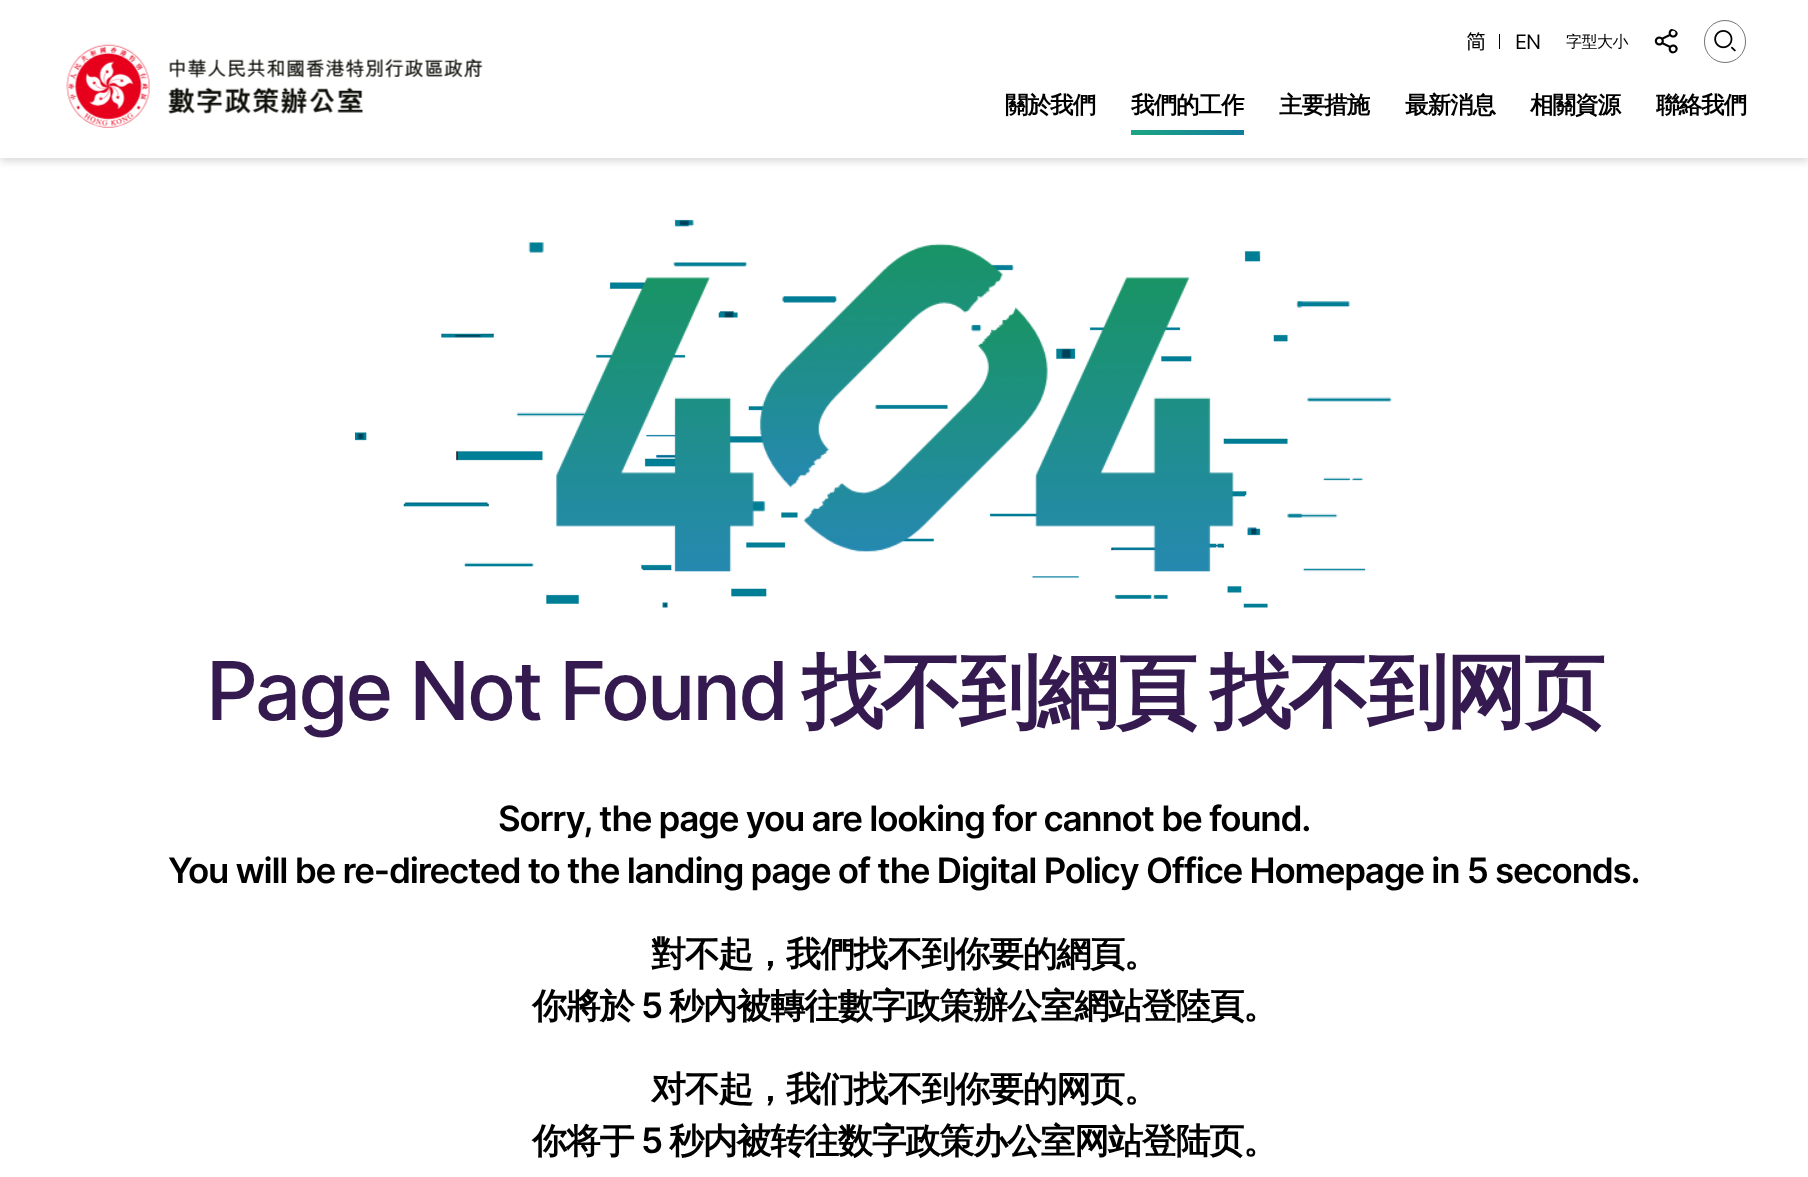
(async () => {
const canvas = document.querySelector("canvas")
canvas.width = 1808
canvas.height = 1177
const c = canvas.getContext("2d")
c.miterLimit = 4
c.fontKerning = "normal"
function T(s,x,y){c.fillText(s,x,y)}
function R(x,y,w,h){c.fillRect(x,y,w,h)}
async function I(src,x,y,w,h){const img=new Image();img.src=src;await img.decode();c.drawImage(img,x,y,w,h)}
let gradient, path
c.fillStyle="#fff"
R(0,0,1808,1177)
c.save()
path = new Path2D("M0 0h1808v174h-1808zm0 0h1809v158h-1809z")
c.clip(path,"evenodd")
c.fillStyle="#00000029"
c.filter="blur(4px)"
c.beginPath()
c.rect(0,4,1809,157)
c.fill()
c.filter="none"
c.restore()
c.fillStyle="#ffffffa6"
R(0,157,1808,1)
await I("1.png",66,44,417,84)
c.letterSpacing="-1px"
c.font="20px Noto Sans CJK SC"
c.fillStyle="#000"
T("简",1466,49)
R(1499,34,1,15)
c.font="20px Inter"
T("EN",1515,49)
c.letterSpacing="-0.5px"
c.font="500 16px WenQuanYi Zen Hei"
T("字型大小",1566,47)
await I("2.png",1654,29,24,25)
c.beginPath()
c.roundRect(1704.5,20.5,41,42,20.5)
c.strokeStyle="#757575"
c.stroke()
await I("3.png",1714,30,22,22)
c.letterSpacing="-1px"
c.font="bold 23.5px WenQuanYi Zen Hei"
T("關於我們",1005,113)
T("我們的工作",1131,113)
gradient = c.createLinearGradient(1113,133,1261,133)
gradient.addColorStop(0,"#1dad7f")
gradient.addColorStop(1,"#1275a1")
c.fillStyle = gradient
R(1131,130,113,5)
c.fillStyle="#000"
T("主要措施",1279,113)
T("最新消息",1405,113)
T("相關資源",1530,113)
T("聯絡我們",1656,113)
await I("4.png",355,219,1037,389)
c.letterSpacing="-2.8px"
c.font="500 81.25px Inter"
c.fillStyle="#351a50"
T("Page Not Found",206,720)
c.font="bold 81.25px WenQuanYi Zen Hei"
T("找不到網頁",802,720)
T("找不到网页",1210,720)
c.letterSpacing="-1.23px"
c.font="600 35px Inter"
c.fillStyle="#000"
T("Sorry, the page you are looking for cannot be found.",498,831)
T("You will be re-directed to the landing page of the Digital Policy Office Homepage in 5 seconds.",168,883)
c.font="bold 35px WenQuanYi Zen Hei"
T("對不起，我們找不到你要的網頁。",651,966)
T("你將於",532,1018)
c.font="600 35px Inter"
T("5",641,1018)
c.font="bold 35px WenQuanYi Zen Hei"
T("秒內被轉往數字政策辦公室網站登陸頁。",669,1018)
T("对不起，我们找不到你要的网页。",651,1101)
T("你将于",532,1153)
c.font="600 35px Inter"
T("5",641,1153)
c.font="bold 35px WenQuanYi Zen Hei"
T("秒内被转往数字政策办公室网站登陆页。",669,1153)
})()
